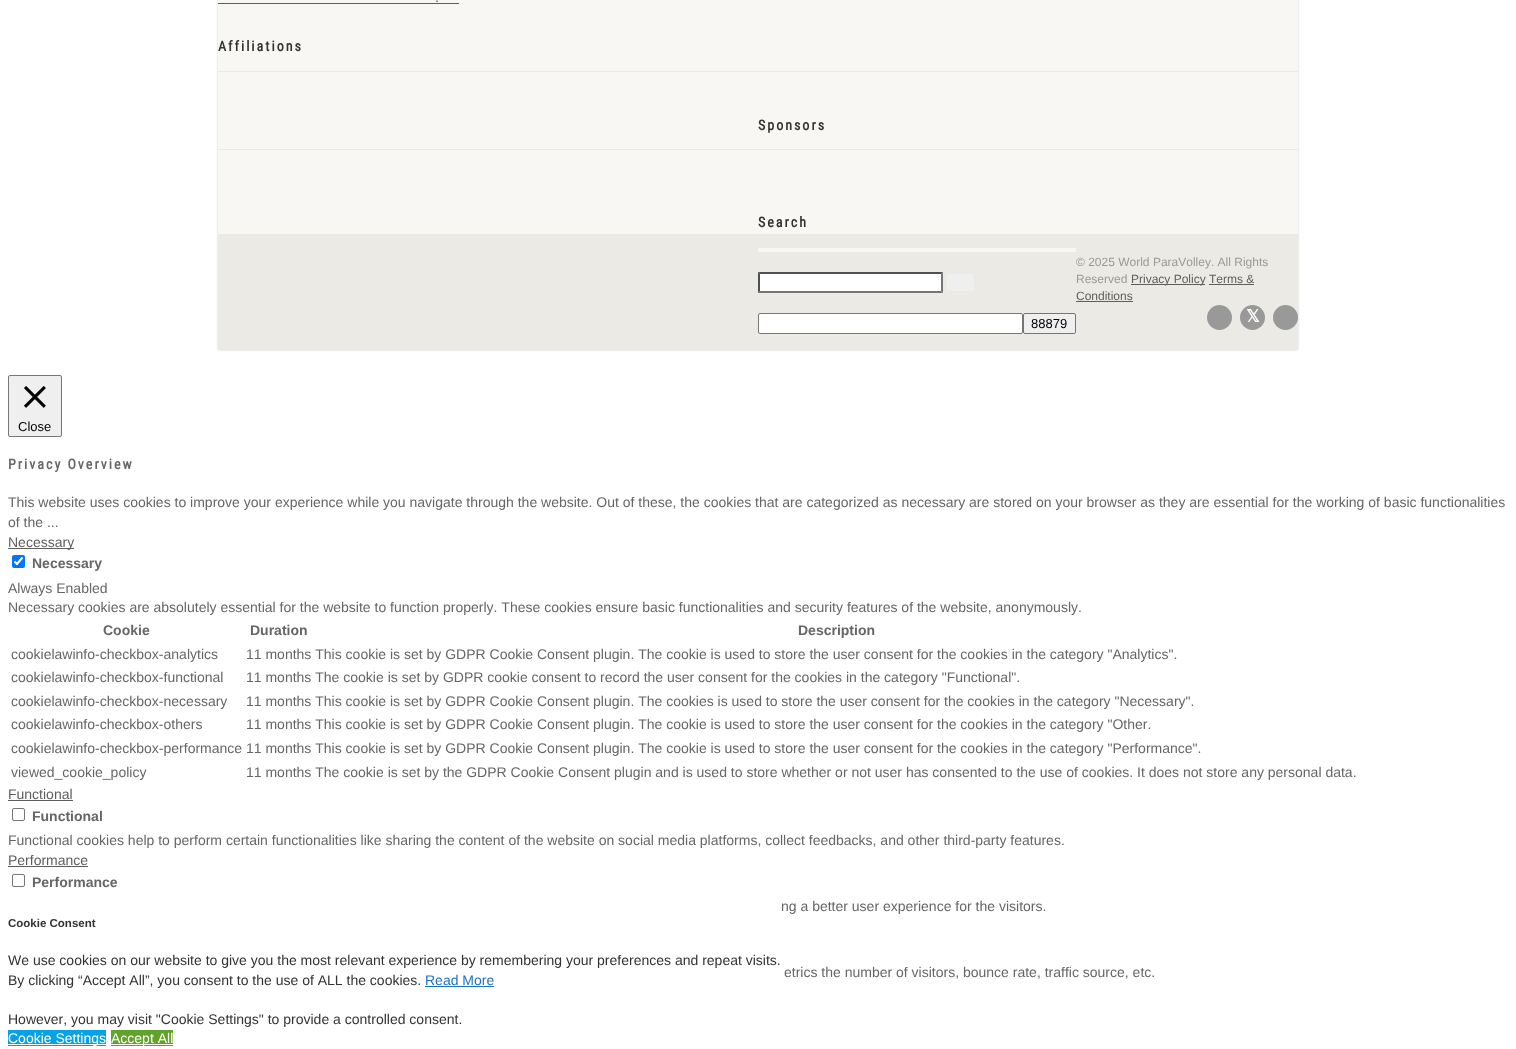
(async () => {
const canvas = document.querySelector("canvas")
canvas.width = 1516
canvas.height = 1049
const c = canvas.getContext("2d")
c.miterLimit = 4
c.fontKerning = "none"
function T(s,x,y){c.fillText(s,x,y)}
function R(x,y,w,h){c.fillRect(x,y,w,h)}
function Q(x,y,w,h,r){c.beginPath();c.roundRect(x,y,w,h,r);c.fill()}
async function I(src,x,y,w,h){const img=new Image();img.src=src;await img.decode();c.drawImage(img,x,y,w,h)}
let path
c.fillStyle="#fff"
R(0,0,1516,1049)
c.fillStyle="#00000033"
c.filter="blur(1px)"
c.beginPath()
c.rect(218,-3,1080,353)
c.fill()
c.filter="none"
c.fillStyle="#f8f7f3"
R(218,0,1080,234)
c.font="14px Liberation Sans"
c.fillStyle="#5e5e5e"
T(".",435,2)
R(218,3,241,1)
c.letterSpacing="2px"
c.font="bold 14px Roboto Condensed"
c.fillStyle="#333"
T("Affiliations",218,51)
c.fillStyle="#eceae4"
R(218,71,1080,1)
c.fillStyle="#333"
T("Sponsors",758,130)
c.fillStyle="#eceae4"
R(218,149,1080,1)
R(218,234,1080,116)
c.fillStyle="#f8f7f3"
R(758,248,318,4)
c.fillStyle="#333"
T("Search",758,227)
c.fillStyle="#fff"
R(758,272,185,21)
c.fillStyle="#4f4f4f"
path = new Path2D("M758 272h185l-2 2h-181z")
c.fill(path)
c.fillStyle="#767676"
path = new Path2D("M943 272v21l-2-2v-17z")
c.fill(path)
path = new Path2D("M943 293h-185l2-2h181z")
c.fill(path)
c.fillStyle="#4f4f4f"
path = new Path2D("M758 293v-21l2 2v17z")
c.fill(path)
c.fillStyle="#efefef"
R(947,274,27,17)
c.fillStyle="#fff"
c.beginPath()
c.roundRect(758.5,313.5,264,20,1.5)
c.fill()
c.strokeStyle="#767676"
c.stroke()
c.fillStyle="#efefef"
c.beginPath()
c.roundRect(1023.5,313.5,52,20,1.5)
c.fill()
c.stroke()
c.letterSpacing="0px"
c.font="13px Liberation Sans"
c.fillStyle="#000"
T("88879",1031,328)
c.font="12px Liberation Sans"
c.fillStyle="#999"
T("© 2025 World ParaVolley. All Rights",1076,266)
T("Reserved",1076,283)
c.fillStyle="#5e5e5e"
R(1131,284,74,1)
T("Privacy Policy Terms &",1131,283)
T("Conditions",1076,300)
R(1209,284,45,1)
R(1076,301,57,1)
c.fillStyle="#999"
c.beginPath()
c.arc(1219.5,317.5,12.5,0,7)
c.fill()
c.beginPath()
c.arc(1252.5,317.5,12.5,0,7)
c.fill()
c.font="bold 17px DejaVu Sans"
c.fillStyle="#fff"
T("𝕏",1246,322)
c.fillStyle="#999"
c.beginPath()
c.arc(1285.5,317.5,12.5,0,7)
c.fill()
c.fillStyle="#efefef"
c.beginPath()
c.roundRect(8.5,375.5,53,61,1.5)
c.fill()
c.stroke()
await I("1.png",24,386,22,22)
c.font="13px Liberation Sans"
c.fillStyle="#000"
T("Close",18,431)
c.letterSpacing="2px"
c.font="bold 14px Roboto Condensed"
c.fillStyle="#666"
T("Privacy Overview",8,469)
c.letterSpacing="0px"
c.font="14px Liberation Sans"
T("This website uses cookies to improve your experience while you navigate through the website. Out of these, the cookies that are categorized as necessary are stored on your browser as they are essential for the working of basic functionalities",8,507)
T("of the ...",8,527)
c.fillStyle="#5e5e5e"
R(8,548,66,1)
T("Necessary",8,547)
c.fillStyle="#0075ff"
Q(12,555,13,13,2)
path = new Path2D("M14.5 561.5l2.5 2.5l5.5-6.5")
c.strokeStyle="#fff"
c.lineWidth=2.1
c.stroke(path)
c.font="bold 14px Liberation Sans"
c.fillStyle="#666"
T("Necessary",32,568)
c.font="14px Liberation Sans"
T("Always Enabled",8,593)
T("Necessary cookies are absolutely essential for the website to function properly. These cookies ensure basic functionalities and security features of the website, anonymously.",8,612)
c.font="bold 14px Liberation Sans"
T("Cookie",103,635)
T("Duration",250,635)
T("Description",798,635)
c.font="14px Liberation Sans"
T("cookielawinfo-checkbox-analytics",11,659)
T("11 months This cookie is set by GDPR Cookie Consent plugin. The cookie is used to store the user consent for the cookies in the category \"Analytics\".",246,659)
T("cookielawinfo-checkbox-functional",11,682)
T("11 months The cookie is set by GDPR cookie consent to record the user consent for the cookies in the category \"Functional\".",246,682)
T("cookielawinfo-checkbox-necessary",11,706)
T("11 months This cookie is set by GDPR Cookie Consent plugin. The cookies is used to store the user consent for the cookies in the category \"Necessary\".",246,706)
T("cookielawinfo-checkbox-others",11,729)
T("11 months This cookie is set by GDPR Cookie Consent plugin. The cookie is used to store the user consent for the cookies in the category \"Other.",246,729)
T("cookielawinfo-checkbox-performance 11 months This cookie is set by GDPR Cookie Consent plugin. The cookie is used to store the user consent for the cookies in the category \"Performance\".",11,753)
T("viewed_cookie_policy",11,777)
T("11 months The cookie is set by the GDPR Cookie Consent plugin and is used to store whether or not user has consented to the use of cookies. It does not store any personal data.",246,777)
c.fillStyle="#5e5e5e"
T("Functional",8,799)
R(8,800,65,1)
c.beginPath()
c.roundRect(12.5,808.5,12,12,1.5)
c.strokeStyle="#767676"
c.lineWidth=1
c.stroke()
c.font="bold 14px Liberation Sans"
c.fillStyle="#666"
T("Functional",32,821)
c.font="14px Liberation Sans"
T("Functional cookies help to perform certain functionalities like sharing the content of the website on social media platforms, collect feedbacks, and other third-party features.",8,845)
c.fillStyle="#5e5e5e"
T("Performance",8,865)
R(8,866,80,1)
c.beginPath()
c.roundRect(12.5,874.5,12,12,1.5)
c.stroke()
c.font="bold 14px Liberation Sans"
c.fillStyle="#666"
T("Performance",32,887)
c.font="14px Liberation Sans"
T("ng a better user experience for the visitors.",781,911)
T("etrics the number of visitors, bounce rate, traffic source, etc.",784,977)
c.font="bold 11.5px Liberation Sans"
c.fillStyle="#333"
T("Cookie Consent",8,927)
c.font="14px Liberation Sans"
T("We use cookies on our website to give you the most relevant experience by remembering your preferences and repeat visits.",8,965)
T("By clicking “Accept All”, you consent to the use of ALL the cookies.",8,985)
c.fillStyle="#1e73be"
T("Read More",425,985)
R(425,986,69,1)
c.fillStyle="#333"
T("However, you may visit \"Cookie Settings\" to provide a controlled consent.",8,1024)
c.fillStyle="#06a2e5"
R(8,1030,98,16)
c.fillStyle="#fff"
R(8,1044,98,1)
T("Cookie Settings",8,1043)
c.fillStyle="#61a229"
R(111,1030,62,16)
c.fillStyle="#fff"
R(111,1044,62,1)
T("Accept All",111,1043)
})()
